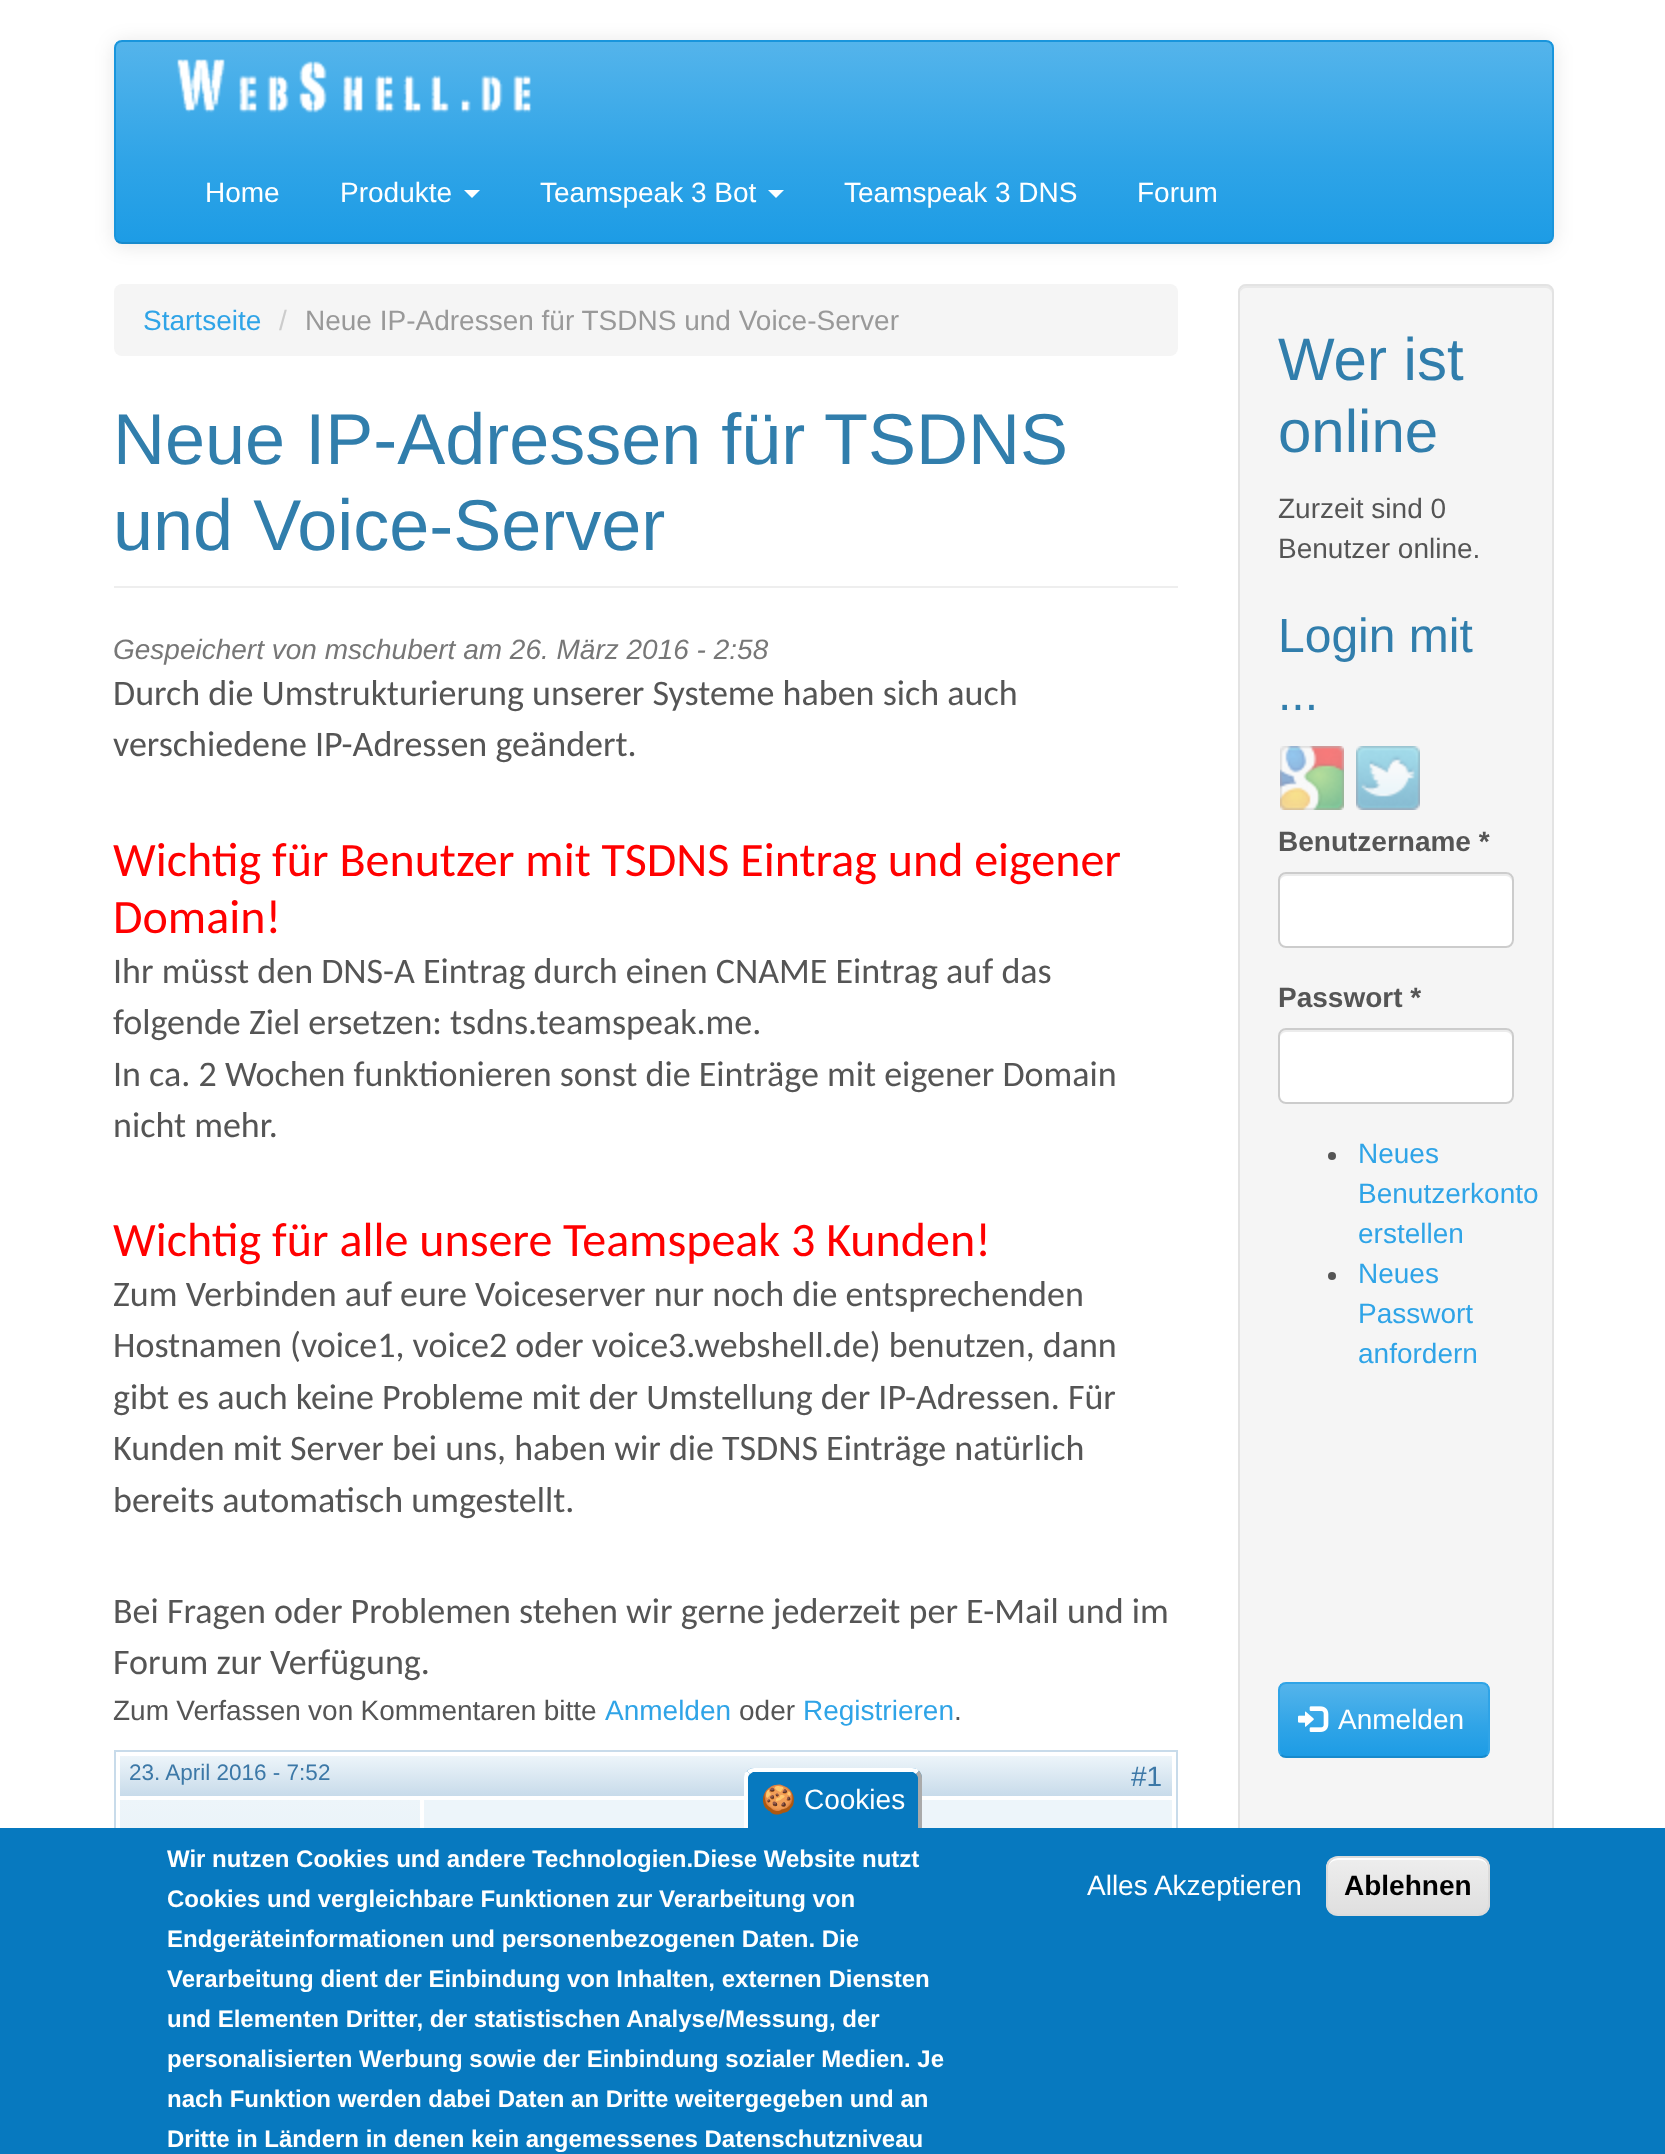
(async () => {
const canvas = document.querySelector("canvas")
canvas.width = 1665
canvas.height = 2154
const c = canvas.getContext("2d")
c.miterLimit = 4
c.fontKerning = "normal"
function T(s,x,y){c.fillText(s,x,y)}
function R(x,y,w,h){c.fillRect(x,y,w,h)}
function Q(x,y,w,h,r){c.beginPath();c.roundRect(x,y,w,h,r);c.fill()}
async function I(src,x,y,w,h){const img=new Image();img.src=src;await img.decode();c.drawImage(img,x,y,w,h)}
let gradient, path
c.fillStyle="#fff"
R(0,0,1665,2154)
c.fillStyle="#0000001a"
c.filter="blur(10px)"
c.beginPath()
c.roundRect(114,42,1440,204,8)
c.fill()
c.filter="none"
c.save()
c.beginPath()
c.roundRect(114,40,1440,204,8)
c.clip()
gradient = c.createLinearGradient(834,42,834,242)
gradient.addColorStop(0,"#54b4eb")
gradient.addColorStop(.6,"#2fa4e7")
gradient.addColorStop(1,"#1d9ce5")
c.fillStyle = gradient
R(116,42,1436,200)
c.restore()
path = new Path2D("M1551 241c-1.5 1.5-3 2-5 2h-1424c-2 0-3.5-.5-5-2")
c.strokeStyle="#178acc"
c.lineWidth=2
c.stroke(path)
path = new Path2D("M117 241c-1.5-1.5-2-3-2-5v-188c0-2 .5-3.5 2-5c1.5-1.5 3-2 5-2h1424c2 0 3.5 .5 5 2c1.5 1.5 2 3 2 5v188c0 2-.5 3.5-2 5")
c.strokeStyle="#1995dc"
c.stroke(path)
await I("1.png",177,59,355,54)
c.font="28px Liberation Sans"
c.fillStyle="#fff"
T("Home",205,202)
T("Produkte",340,202)
path = new Path2D("M464 190h16l-8 8z")
c.fill(path)
T("Teamspeak 3 Bot",540,202)
path = new Path2D("M768 190h16l-8 8z")
c.fill(path)
T("Teamspeak 3 DNS",844,202)
T("Forum",1137,202)
c.fillStyle="#f5f5f5"
Q(114,284,1064,72,8)
c.fillStyle="#2fa4e7"
T("Startseite",143,330)
c.fillStyle="#ccc"
T("/",279,330)
c.fillStyle="#999"
T("Neue IP-Adressen für TSDNS und Voice-Server",305,330)
c.fillStyle="#eee"
R(114,586,1064,2)
c.font="72px Liberation Sans"
c.fillStyle="#317eac"
T("Neue IP-Adressen für TSDNS",113,464)
T("und Voice-Server",113,550)
c.font="italic 28px Liberation Sans"
c.fillStyle="#777"
T("Gespeichert von mschubert am 26. März 2016 - 2:58",113,659)
c.font="36px Carlito"
c.fillStyle="#555"
T("Durch die Umstrukturierung unserer Systeme haben sich auch",113,705)
T("verschiedene IP-Adressen geändert.",113,756)
c.font="48px Carlito"
c.fillStyle="#f00"
T("Wichtig für Benutzer mit TSDNS Eintrag und eigener",113,876)
T("Domain!",113,933)
c.font="36px Carlito"
c.fillStyle="#555"
T("Ihr müsst den DNS-A Eintrag durch einen CNAME Eintrag auf das",113,983)
T("folgende Ziel ersetzen: tsdns.teamspeak.me.",113,1034)
T("In ca. 2 Wochen funktionieren sonst die Einträge mit eigener Domain",113,1086)
T("nicht mehr.",113,1137)
c.font="48px Carlito"
c.fillStyle="#f00"
T("Wichtig für alle unsere Teamspeak 3 Kunden!",113,1256)
c.font="36px Carlito"
c.fillStyle="#555"
T("Zum Verbinden auf eure Voiceserver nur noch die entsprechenden",113,1306)
T("Hostnamen (voice1, voice2 oder voice3.webshell.de) benutzen, dann",113,1357)
T("gibt es auch keine Probleme mit der Umstellung der IP-Adressen. Für",113,1409)
T("Kunden mit Server bei uns, haben wir die TSDNS Einträge natürlich",113,1460)
T("bereits automatisch umgestellt.",113,1512)
T("Bei Fragen oder Problemen stehen wir gerne jederzeit per E-Mail und im",113,1623)
T("Forum zur Verfügung.",113,1674)
c.wordSpacing="-0.5px"
c.font="28px Liberation Sans"
T("Zum Verfassen von Kommentaren bitte",113,1720)
c.wordSpacing="0px"
c.fillStyle="#2fa4e7"
T("Anmelden",605,1720)
c.fillStyle="#555"
T("oder",739,1720)
c.fillStyle="#2fa4e7"
T("Registrieren",803,1720)
c.fillStyle="#555"
T(".",954,1720)
c.strokeStyle="#c8dbea"
c.strokeRect(115,1751,1062,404)
gradient = c.createLinearGradient(120,1756,120,1796)
gradient.addColorStop(0,"#edf5fa")
gradient.addColorStop(1,"#c8dbea")
c.fillStyle = gradient
R(120,1756,1052,40)
c.font="22.5px Liberation Sans"
c.fillStyle="#3c78a7"
T("23. April 2016 - 7:52",129,1780)
c.font="28px Liberation Sans"
T("#1",1131,1786)
gradient = c.createLinearGradient(120,1800,120,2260)
gradient.addColorStop(0,"#edf5fa")
gradient.addColorStop(1,"#c8dbea")
c.fillStyle = gradient
R(120,1800,300,28)
c.fillStyle="#edf5fa"
R(424,1800,748,28)
c.fillStyle="#f5f5f5"
Q(1238,284,316,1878,8)
c.fillStyle="#e9e9e9"
path = new Path2D("M1246 288h300c3 0 6 3 6 6c0-4-1-8-6-8h-301c-4 1-5 5-5 8c0-3 3-6 6-6z")
c.fill(path)
c.beginPath()
c.roundRect(1239,285,314,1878,7)
c.strokeStyle="#e3e3e3"
c.stroke()
c.font="60px Liberation Sans"
c.fillStyle="#317eac"
T("Wer ist",1278,380)
T("online",1278,452)
c.font="28px Liberation Sans"
c.fillStyle="#555"
T("Zurzeit sind 0",1278,518)
T("Benutzer online.",1278,558)
c.font="48px Liberation Sans"
c.fillStyle="#317eac"
T("Login mit",1278,652)
T("...",1278,710)
await I("2.png",1280,746,64,64)
await I("3.png",1356,746,64,64)
c.font="bold 28px Liberation Sans"
c.fillStyle="#555"
T("Benutzername *",1278,851)
c.fillStyle="#fff"
Q(1278,872,236,76,8)
c.fillStyle="#ececec"
path = new Path2D("M1286 876h220c3 0 6 3 6 6v-2c0-3-3-6-6-6h-220c-3 0-6 3-6 6v2c0-3 3-6 6-6z")
c.fill(path)
c.beginPath()
c.roundRect(1279,873,234,74,7)
c.strokeStyle="#ccc"
c.stroke()
c.fillStyle="#555"
T("Passwort *",1278,1007)
c.fillStyle="#fff"
Q(1278,1028,236,76,8)
c.fillStyle="#ececec"
path = new Path2D("M1286 1032h220c3 0 6 3 6 6v-2c0-3-3-6-6-6h-220c-3 0-6 3-6 6v2c0-3 3-6 6-6z")
c.fill(path)
c.beginPath()
c.roundRect(1279,1029,234,74,7)
c.stroke()
c.fillStyle="#555"
c.beginPath()
c.arc(1332,1156,4,0,7)
c.fill()
c.font="28px Liberation Sans"
c.fillStyle="#2fa4e7"
T("Neues",1358,1163)
T("Benutzerkonto",1358,1203)
T("erstellen",1358,1243)
c.fillStyle="#555"
c.beginPath()
c.arc(1332,1276,4,0,7)
c.fill()
c.fillStyle="#2fa4e7"
T("Neues",1358,1283)
T("Passwort",1358,1323)
T("anfordern",1358,1363)
c.save()
c.beginPath()
c.roundRect(1278,1682,212,76,8)
c.clip()
gradient = c.createLinearGradient(1384,1684,1384,1756)
gradient.addColorStop(0,"#54b4eb")
gradient.addColorStop(.6,"#2fa4e7")
gradient.addColorStop(1,"#1d9ce5")
c.fillStyle = gradient
R(1280,1684,208,72)
c.restore()
path = new Path2D("M1487 1755c-1.5 1.5-3 2-5 2h-196c-2 0-3.5-.5-5-2")
c.strokeStyle="#178acc"
c.stroke(path)
path = new Path2D("M1281 1755c-1.5-1.5-2-3-2-5v-60c0-2 .5-3.5 2-5c1.5-1.5 3-2 5-2h196c2 0 3.5 .5 5 2c1.5 1.5 2 3 2 5v60c0 2-.5 3.5-2 5")
c.strokeStyle="#2fa4e7"
c.stroke(path)
await I("4.png",1298,1706,31,26)
c.fillStyle="#fff"
T("Anmelden",1338,1729)
c.fillStyle="#0779bf"
R(0,1828,1665,326)
c.beginPath()
c.roundRect(744,1768,178,60,[10,10,0,0])
c.fill()
c.fillStyle="#fff"
path = new Path2D("M754 1768c-3 0-5 1-7 3l3 3l3-2h160l3 2l3-3c-1-2-4-3-7-3z")
c.fill(path)
c.fillStyle="#aaa"
path = new Path2D("M918 1828h4v-50c0-3-1-5-3-7l-3 3c1 1 2 3 2 4z")
c.fill(path)
c.fillStyle="#fff"
path = new Path2D("M744 1828v-51c0-3 1-5 3-6l3 3c-1 1-2 2-2 4v50z")
c.fill(path)
c.font="28px Noto Color Emoji"
T("🍪",761,1809)
c.font="28px Liberation Sans"
T("Cookies",804,1809)
c.font="bold 24px Liberation Sans"
T("Wir nutzen Cookies und andere Technologien.Diese Website nutzt",167,1867)
T("Cookies und vergleichbare Funktionen zur Verarbeitung von",167,1907)
T("Endgeräteinformationen und personenbezogenen Daten. Die",167,1947)
T("Verarbeitung dient der Einbindung von Inhalten, externen Diensten",167,1987)
T("und Elementen Dritter, der statistischen Analyse/Messung, der",167,2027)
T("personalisierten Werbung sowie der Einbindung sozialer Medien. Je",167,2067)
T("nach Funktion werden dabei Daten an Dritte weitergegeben und an",167,2107)
T("Dritte in Ländern in denen kein angemessenes Datenschutzniveau",167,2147)
c.font="28px Liberation Sans"
T("Alles Akzeptieren",1087,1895)
c.save()
c.beginPath()
c.roundRect(1326,1856,164,60,12)
c.clip()
gradient = c.createLinearGradient(1408,1858,1408,1914)
gradient.addColorStop(.05,"#ededed")
gradient.addColorStop(1,"#dfdfdf")
c.fillStyle = gradient
R(1326,1858,164,56)
c.restore()
path = new Path2D("M1338 1860h140c6 0 10 4 10 10v-2c0-6-4-10-10-10h-140c-6 0-10 4-10 10v2c0-6 4-10 10-10z")
c.fill(path)
c.beginPath()
c.roundRect(1327,1857,162,58,11)
c.strokeStyle="#dcdcdc"
c.stroke()
c.font="bold 28px Liberation Sans"
c.fillStyle="#000"
T("Ablehnen",1344,1895)
})()
